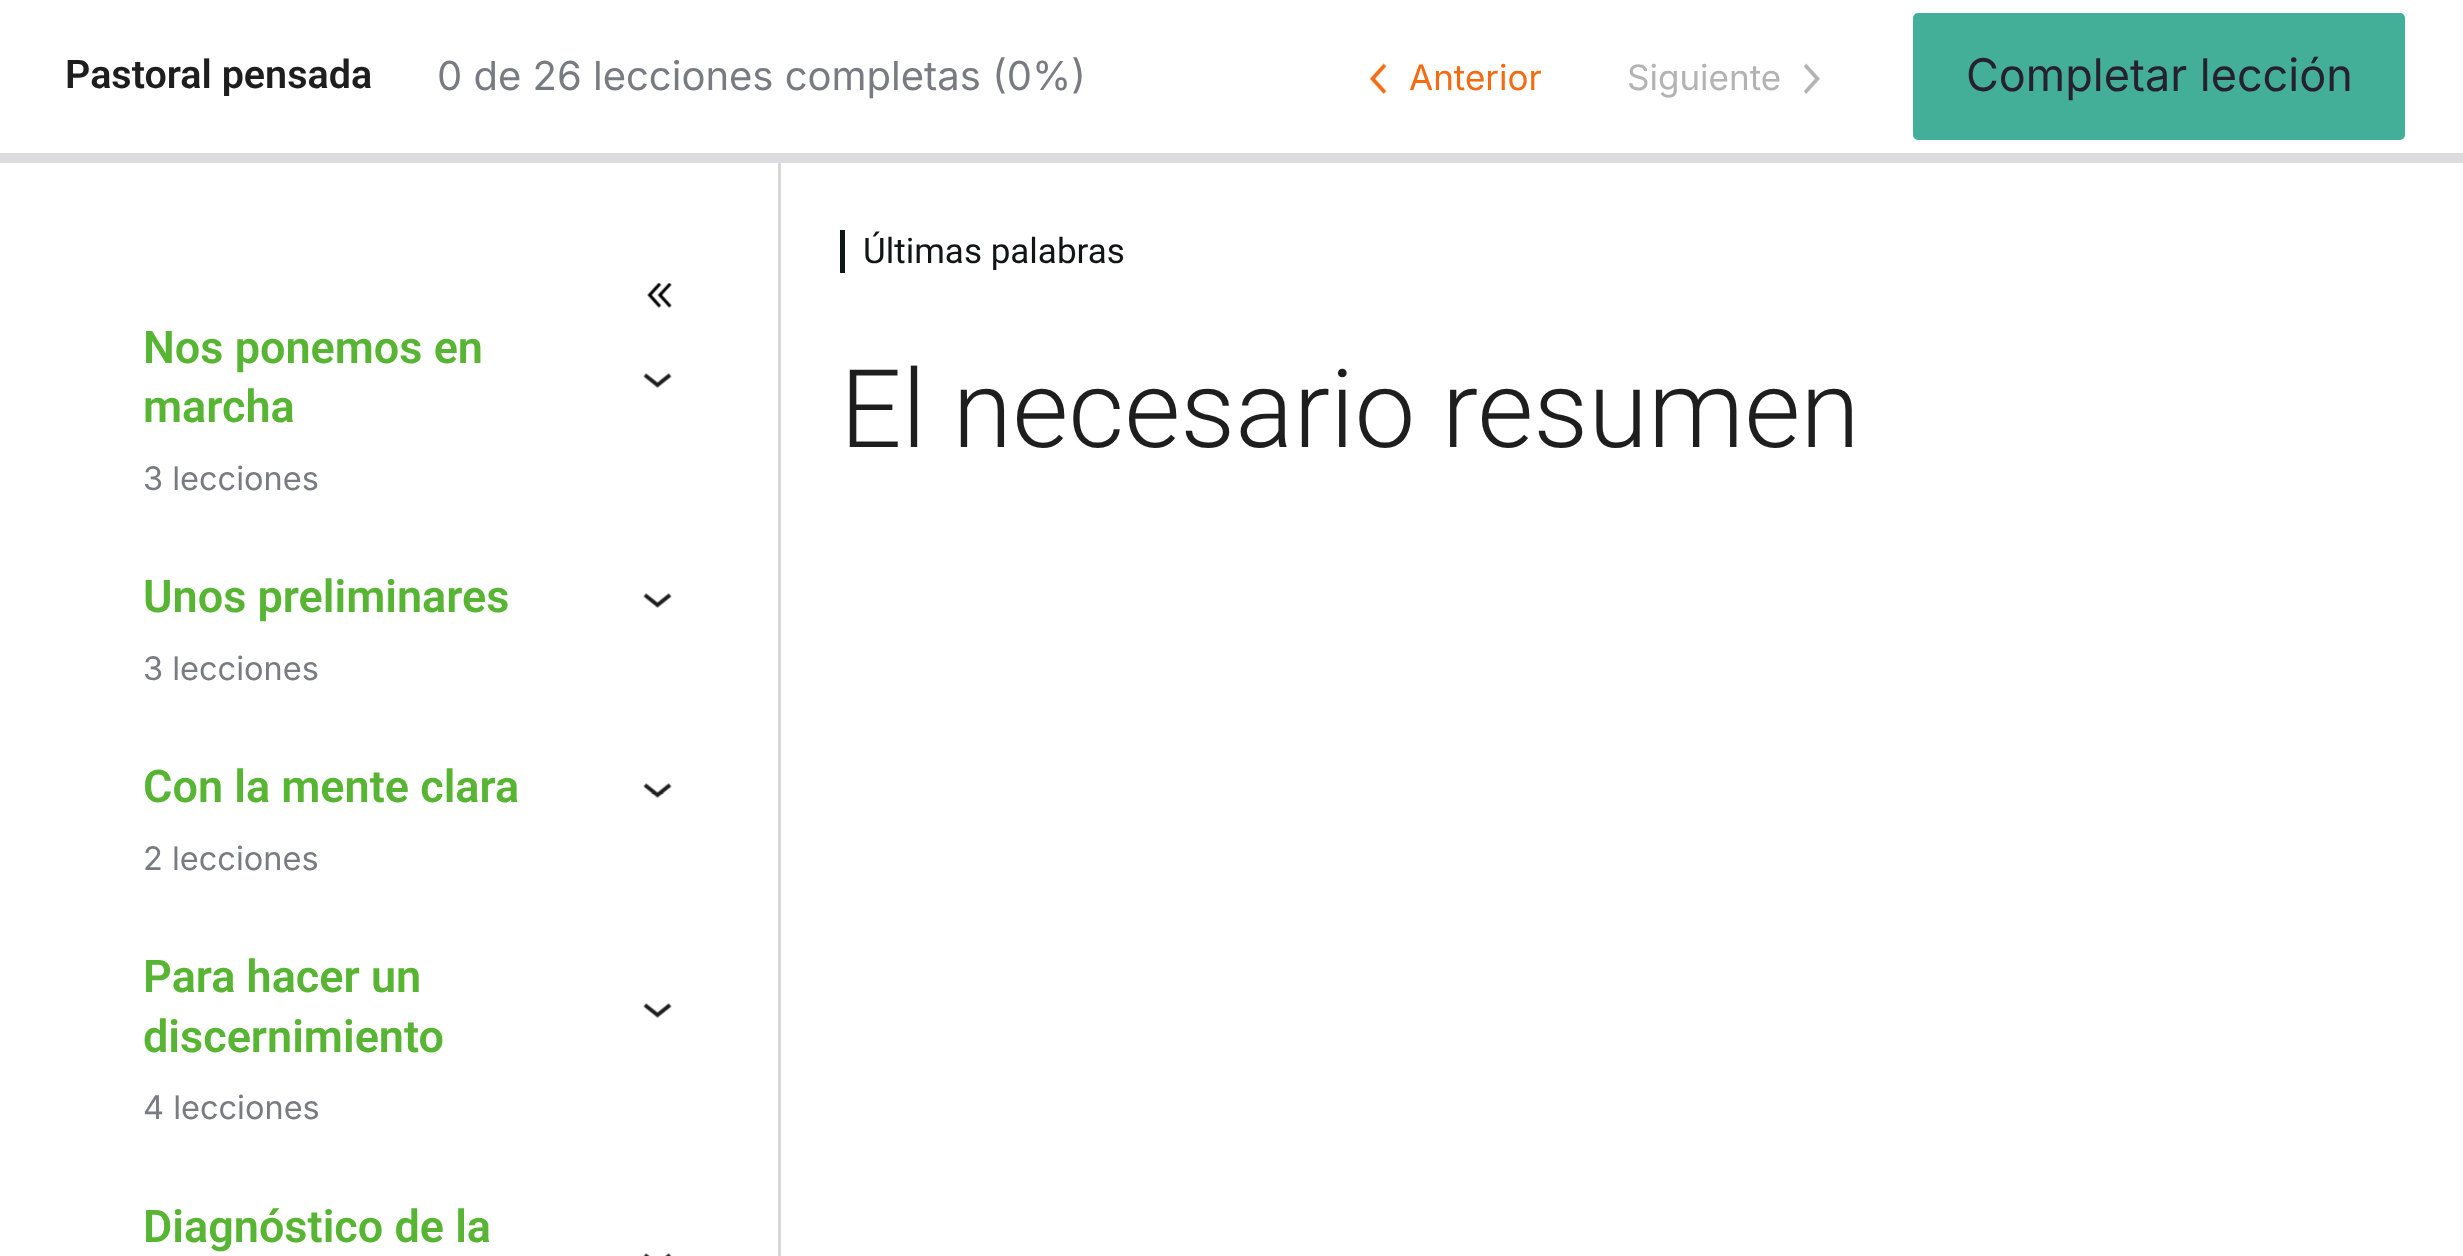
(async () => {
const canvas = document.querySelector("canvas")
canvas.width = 2463
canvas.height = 1256
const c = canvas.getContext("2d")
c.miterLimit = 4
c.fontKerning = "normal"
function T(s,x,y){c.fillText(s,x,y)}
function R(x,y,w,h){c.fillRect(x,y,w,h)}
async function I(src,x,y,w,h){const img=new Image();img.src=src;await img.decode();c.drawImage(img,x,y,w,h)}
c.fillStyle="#fff"
R(0,0,2463,1256)
c.font="600 39.5px Roboto"
c.fillStyle="#1e1e1e"
T("Pastoral pensada",65,88)
c.font="40px Inter"
c.fillStyle="#787c82"
T("0 de 26 lecciones completas (0%)",437,90)
await I("1.png",1370,63,17,32)
c.font="35px Inter"
c.fillStyle="#f66b11"
T("Anterior",1409,90)
c.fillStyle="#b3b3b3"
T("Siguiente",1627,90)
await I("2.png",1804,63,16,31)
c.fillStyle="#43af99"
c.beginPath()
c.roundRect(1914.5,14.5,489,124,3.5)
c.fill()
c.strokeStyle="#43af99"
c.lineWidth=3
c.stroke()
c.font="45px Inter"
c.fillStyle="#26212e"
T("Completar lección",1966,91)
c.fillStyle="#dcdcde"
R(0,153,2463,10)
c.fillStyle="#d8d8d8"
R(778,163,3,1093)
await I("3.png",647,283,25,25)
c.font="600 45px Roboto"
c.fillStyle="#58b534"
T("Nos ponemos en",143,363)
T("marcha",143,422)
await I("4.png",643,373,29,15)
c.font="32.5px Inter"
c.fillStyle="#787c82"
T("3 lecciones",143,490)
c.font="600 45px Roboto"
c.fillStyle="#58b534"
T("Unos preliminares",143,612)
await I("4.png",643,593,29,15)
c.font="32.5px Inter"
c.fillStyle="#787c82"
T("3 lecciones",143,680)
c.font="600 45px Roboto"
c.fillStyle="#58b534"
T("Con la mente clara",143,802)
await I("5.png",643,783,29,15)
c.font="32.5px Inter"
c.fillStyle="#787c82"
T("2 lecciones",143,870)
c.font="600 45px Roboto"
c.fillStyle="#58b534"
T("Para hacer un",143,992)
T("discernimiento",143,1052)
await I("4.png",643,1003,29,15)
c.font="32.5px Inter"
c.fillStyle="#787c82"
T("4 lecciones",143,1119)
c.font="600 45px Roboto"
c.fillStyle="#58b534"
T("Diagnóstico de la",143,1242)
await I("6.png",643,1253,29,3)
c.fillStyle="#101517"
R(840,230,5,43)
c.font="35px Roboto"
T("Últimas palabras",863,263)
c.font="300 108.5px Roboto"
c.fillStyle="#1e1e1e"
T("El necesario resumen",840,447)
})()
